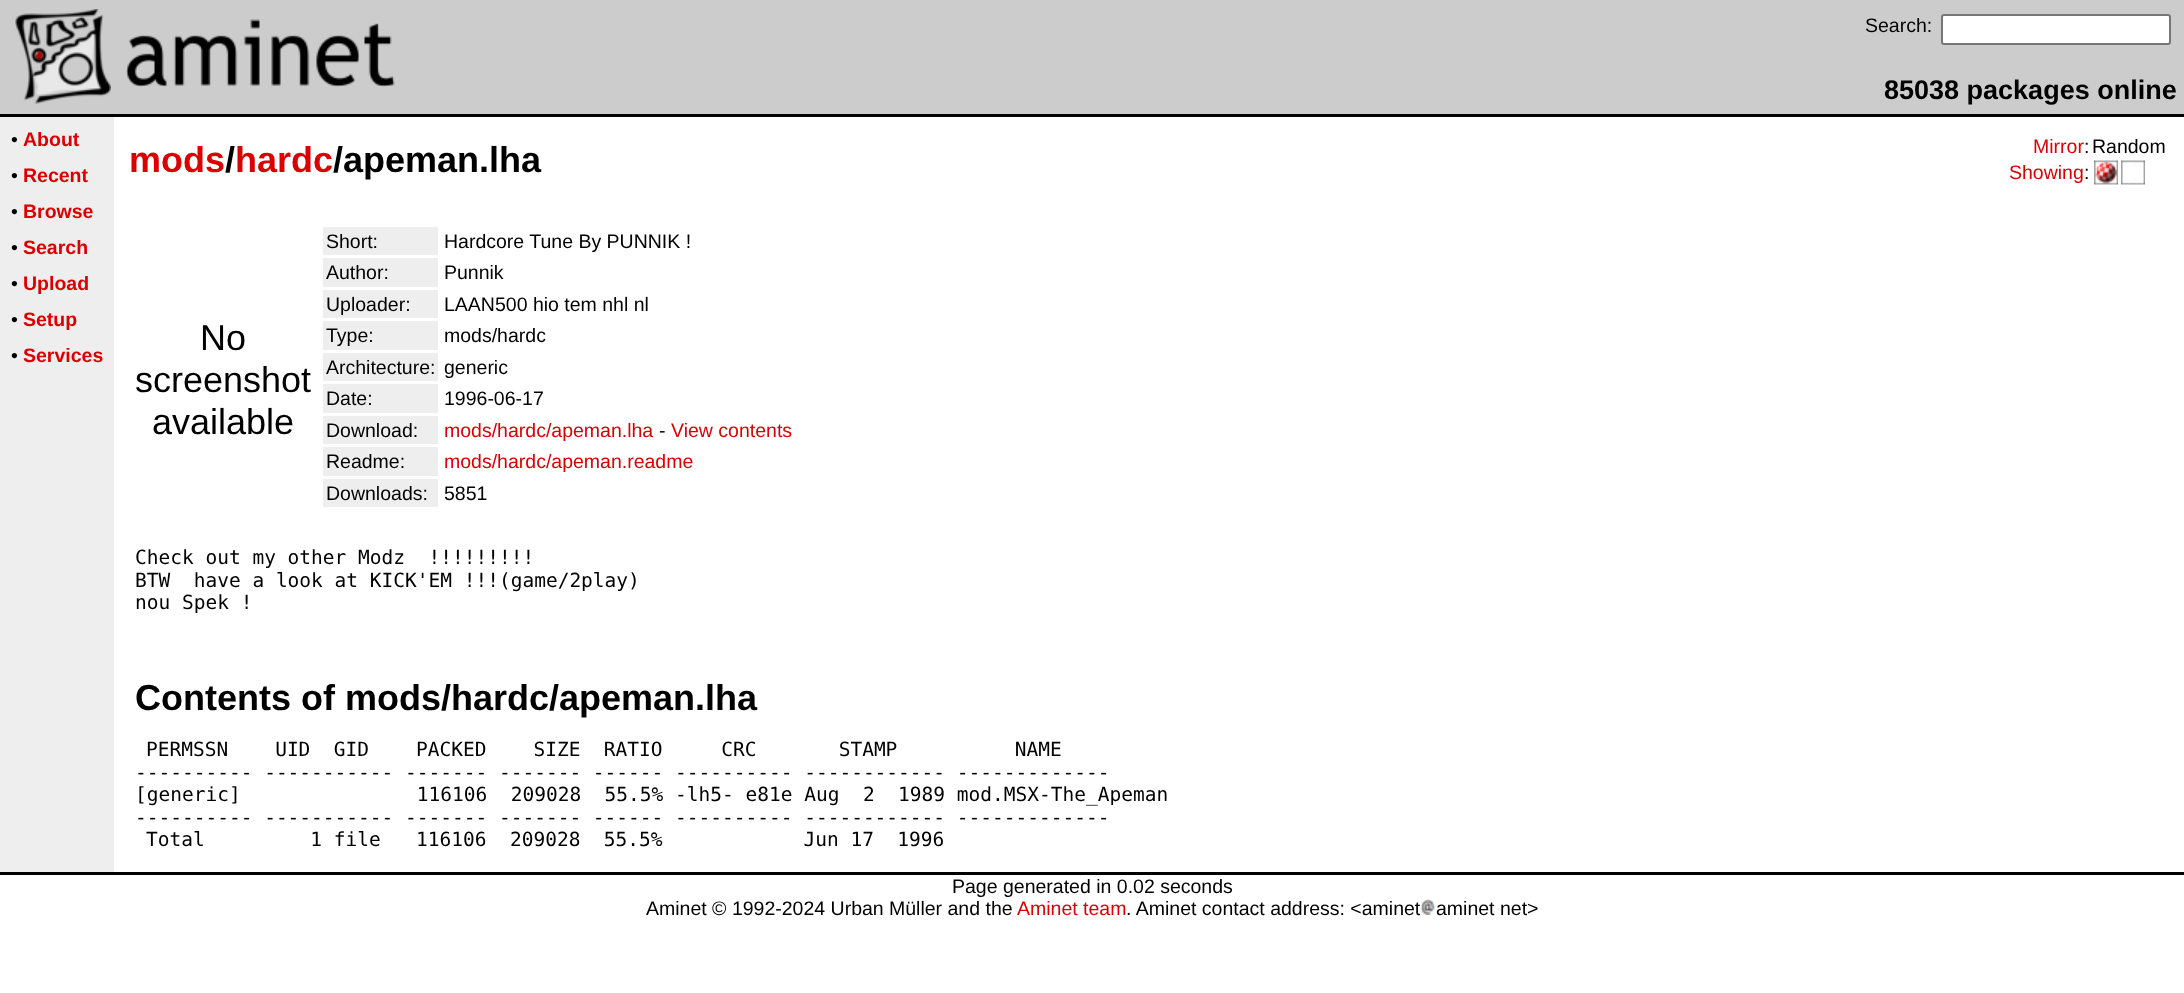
(async () => {
const canvas = document.querySelector("canvas")
canvas.width = 2184
canvas.height = 993
const c = canvas.getContext("2d")
c.miterLimit = 4
c.fontKerning = "normal"
function T(s,x,y){c.fillText(s,x,y)}
function R(x,y,w,h){c.fillRect(x,y,w,h)}
async function I(src,x,y,w,h){const img=new Image();img.src=src;await img.decode();c.drawImage(img,x,y,w,h)}
c.fillStyle="#fff"
R(0,0,2184,993)
c.fillStyle="#ccc"
R(0,0,2184,114)
await I("1.png",15,9,96,95)
await I("2.png",126,19,269,68)
c.font="19.5px Liberation Sans"
c.fillStyle="#000"
T("Search:",1865,32)
c.fillStyle="#fff"
c.beginPath()
c.roundRect(1942,15,228,29,2)
c.fill()
c.strokeStyle="#767676"
c.lineWidth=2
c.stroke()
c.font="bold 27px Liberation Sans"
c.fillStyle="#000"
T("85038 packages online",1884,99)
R(0,114,2184,3)
c.fillStyle="#eee"
R(0,117,114,755)
c.font="19.5px Liberation Sans"
c.fillStyle="#000"
T("•",11,146)
c.font="bold 19.5px Liberation Sans"
c.fillStyle="#d00"
T("About",23,146)
c.font="19.5px Liberation Sans"
c.fillStyle="#000"
T("•",11,182)
c.font="bold 19.5px Liberation Sans"
c.fillStyle="#d00"
T("Recent",23,182)
c.font="19.5px Liberation Sans"
c.fillStyle="#000"
T("•",11,218)
c.font="bold 19.5px Liberation Sans"
c.fillStyle="#d00"
T("Browse",23,218)
c.font="19.5px Liberation Sans"
c.fillStyle="#000"
T("•",11,254)
c.font="bold 19.5px Liberation Sans"
c.fillStyle="#d00"
T("Search",23,254)
c.font="19.5px Liberation Sans"
c.fillStyle="#000"
T("•",11,290)
c.font="bold 19.5px Liberation Sans"
c.fillStyle="#d00"
T("Upload",23,290)
c.font="19.5px Liberation Sans"
c.fillStyle="#000"
T("•",11,326)
c.font="bold 19.5px Liberation Sans"
c.fillStyle="#d00"
T("Setup",23,326)
c.font="19.5px Liberation Sans"
c.fillStyle="#000"
T("•",11,362)
c.font="bold 19.5px Liberation Sans"
c.fillStyle="#d00"
T("Services",23,362)
c.font="bold 36px Liberation Sans"
T("mods hardc",129,172)
c.fillStyle="#000"
T("/",225,172)
T("/apeman.lha",333,172)
c.font="19.5px Liberation Sans"
c.fillStyle="#d00"
T("Mirror",2033,153)
c.fillStyle="#000"
T(":",2084,153)
T("Random",2092,153)
c.fillStyle="#d00"
T("Showing",2009,179)
c.fillStyle="#000"
T(":",2084,179)
await I("3.png",2094,160,24,25)
await I("4.png",2121,160,24,25)
c.font="36px Liberation Sans"
T("No",200,350)
T("screenshot",135,392)
T("available",152,434)
c.fillStyle="#eee"
R(323,227,115,28)
c.font="19.5px Liberation Sans"
c.fillStyle="#000"
T("Short:",326,248)
T("Hardcore Tune By PUNNIK !",444,248)
c.fillStyle="#eee"
R(323,258,115,29)
c.fillStyle="#000"
T("Author:",326,279)
T("Punnik",444,279)
c.fillStyle="#eee"
R(323,290,115,28)
c.fillStyle="#000"
T("Uploader:",326,311)
T("LAAN500 hio tem nhl nl",444,311)
c.fillStyle="#eee"
R(323,321,115,29)
c.fillStyle="#000"
T("Type:",326,342)
T("mods/hardc",444,342)
c.fillStyle="#eee"
R(323,353,115,28)
c.fillStyle="#000"
T("Architecture:",326,374)
T("generic",444,374)
c.fillStyle="#eee"
R(323,384,115,29)
c.fillStyle="#000"
T("Date:",326,405)
T("1996-06-17",444,405)
c.fillStyle="#eee"
R(323,416,115,28)
c.fillStyle="#000"
T("Download:",326,437)
c.fillStyle="#d00"
T("mods/hardc/apeman.lha",444,437)
c.fillStyle="#000"
T("-",659,437)
c.fillStyle="#d00"
T("View contents",671,437)
c.fillStyle="#eee"
R(323,447,115,29)
c.fillStyle="#000"
T("Readme:",326,468)
c.fillStyle="#d00"
T("mods/hardc/apeman.readme",444,468)
c.fillStyle="#eee"
R(323,479,115,28)
c.fillStyle="#000"
T("Downloads:",326,500)
T("5851",444,500)
c.font="19.5px DejaVu Sans Mono"
T("Check out my other Modz  !!!!!!!!!",135,564)
T("BTW  have a look at KICK'EM !!!(game/2play)",135,587)
T("nou Spek !",135,609)
c.font="bold 36px Liberation Sans"
T("Contents of mods/hardc/apeman.lha",135,710)
c.font="19.5px DejaVu Sans Mono"
T("PERMSSN    UID  GID    PACKED    SIZE  RATIO     CRC       STAMP          NAME",146,756)
T("---------- ----------- ------- ------- ------ ---------- ------------ -------------",135,779)
T("[generic]               116106  209028  55.5% -lh5- e81e Aug  2  1989 mod.MSX-The_Apeman",135,801)
T("---------- ----------- ------- ------- ------ ---------- ------------ -------------",135,824)
T("Total         1 file   116106  209028  55.5%            Jun 17  1996",146,846)
R(0,872,2184,3)
c.font="19.5px Liberation Sans"
T("Page generated in 0.02 seconds",952,893)
T("Aminet © 1992-2024 Urban",646,915)
T("Müller and the",889,915)
c.fillStyle="#d00"
T("Aminet team",1017,915)
c.fillStyle="#000"
T(". Aminet contact address: <aminet",1126,915)
await I("5.png",1420,899,16,16)
T("aminet net>",1436,915)
})()
